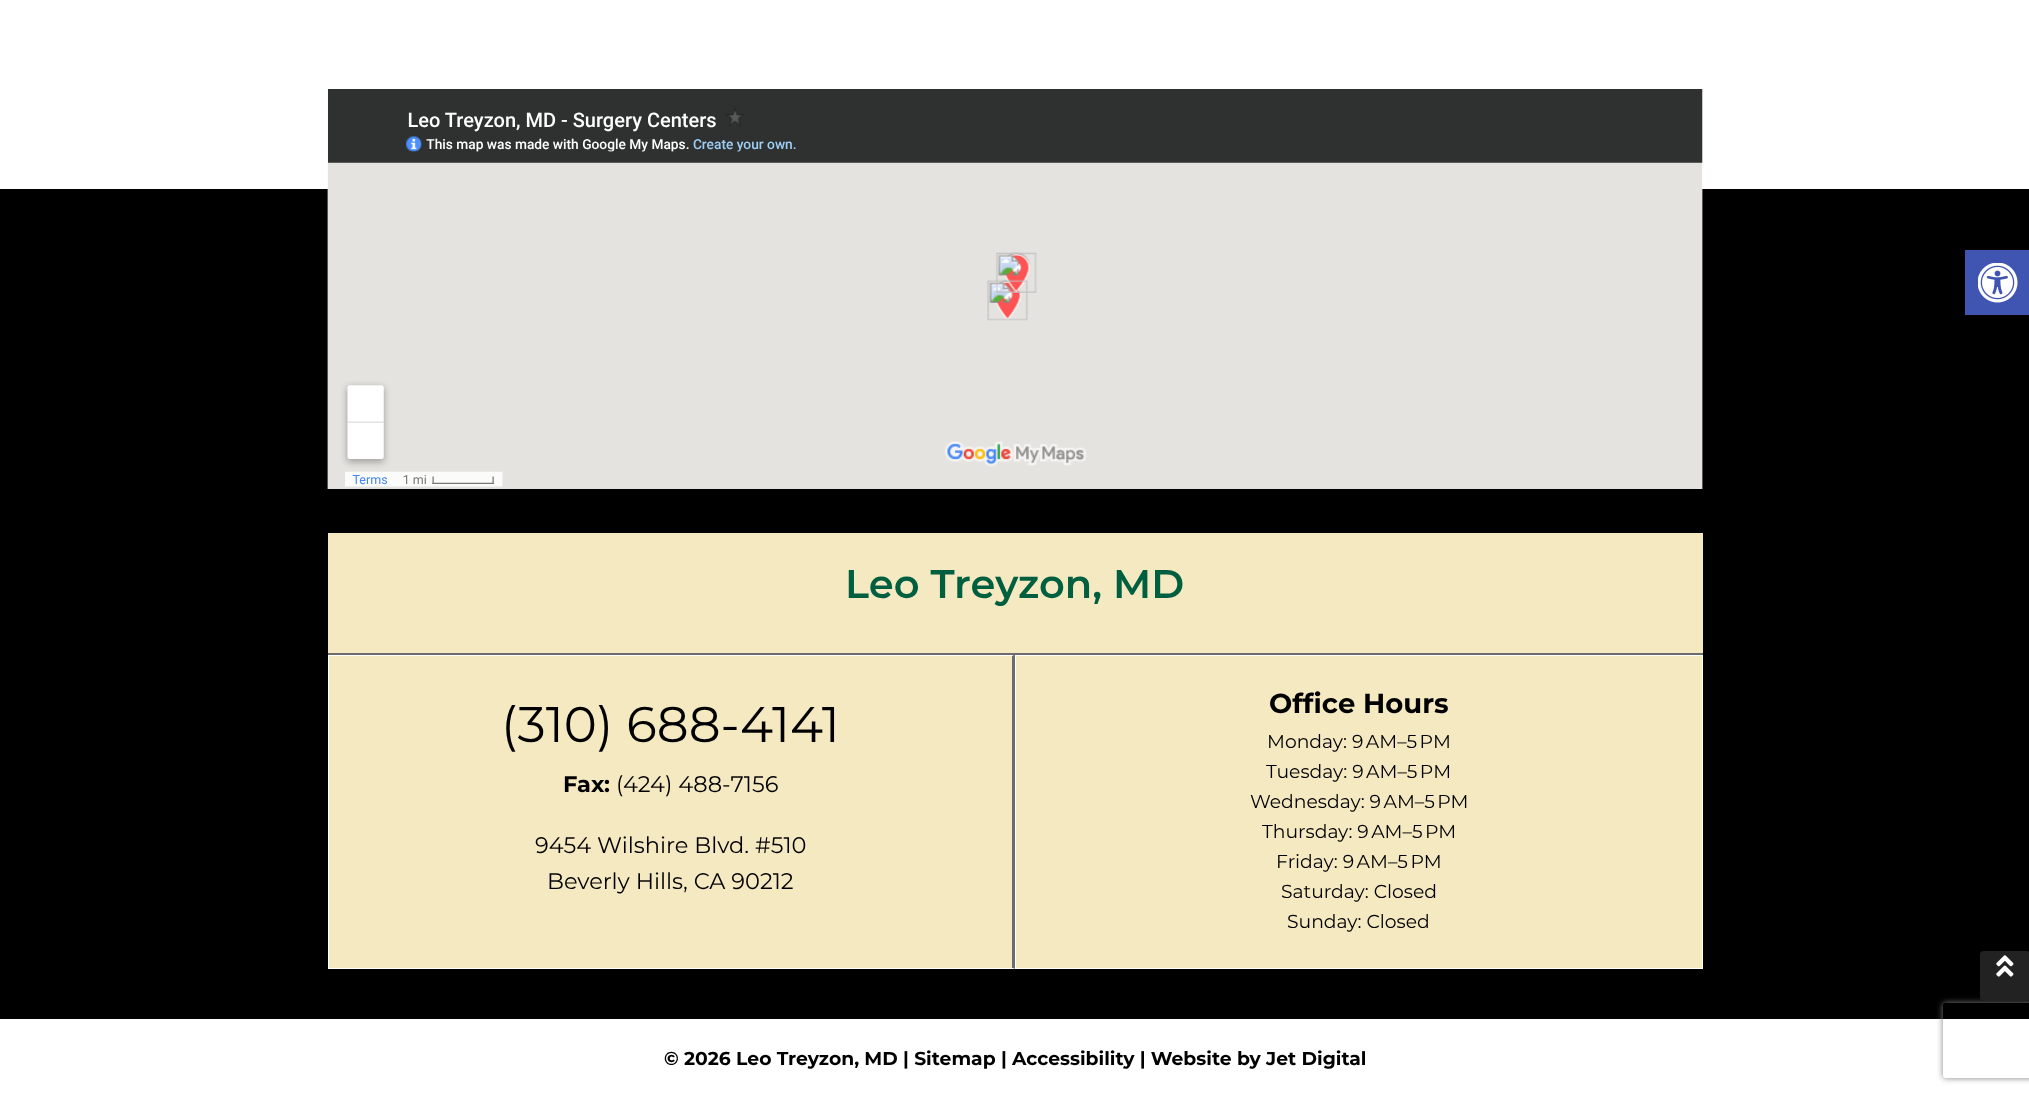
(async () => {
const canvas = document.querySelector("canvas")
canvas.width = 2029
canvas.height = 1095
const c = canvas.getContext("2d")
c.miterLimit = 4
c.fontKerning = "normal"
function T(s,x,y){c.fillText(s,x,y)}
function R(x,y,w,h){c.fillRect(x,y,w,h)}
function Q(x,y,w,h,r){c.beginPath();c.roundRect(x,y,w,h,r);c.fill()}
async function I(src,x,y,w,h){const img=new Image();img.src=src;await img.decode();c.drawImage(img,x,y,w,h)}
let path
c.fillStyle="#fff"
R(0,0,2029,1095)
c.fillStyle="#000"
R(0,189,2029,830)
c.fillStyle="#4054b2"
R(1965,250,64,65)
await I("1.png",1978,263,40,40)
await I("2.png",327,89,1376,400)
c.fillStyle="#f5e9c2"
R(328,533,1375,436)
c.fillStyle="#6c6c6c"
R(328,653,1375,3)
c.font="600 40px Montserrat"
c.fillStyle="#005f3f"
T("Leo Treyzon, MD",845,598)
c.fillStyle="#fff"
path = new Path2D("M328 655h687l-3 1h-683z")
c.fill(path)
c.fillStyle="#6c6c6c"
path = new Path2D("M1015 655v314l-3-1v-312z")
c.fill(path)
c.fillStyle="#fff"
path = new Path2D("M1015 969h-687l1-1h683z")
c.fill(path)
R(328,655,1,314)
c.font="50px Montserrat"
c.fillStyle="#000"
T("(310) 688-4141",501,742)
c.font="bold 22.5px Montserrat"
T("Fax:",563,792)
c.font="22.5px Montserrat"
T("(424) 488-7156",616,792)
T("9454 Wilshire Blvd. #510",535,853)
T("Beverly Hills, CA 90212",547,889)
c.strokeStyle="#fff"
c.strokeRect(1015.5,655.5,687,313)
c.font="bold 27.5px Montserrat"
T("Office Hours",1269,713)
c.font="18.75px Montserrat"
T("Monday: 9 AM–5 PM",1267,748)
T("Tuesday: 9 AM–5 PM",1266,778)
T("Wednesday: 9 AM–5 PM",1250,808)
T("Thursday: 9 AM–5 PM",1262,838)
T("Friday: 9 AM–5 PM",1276,868)
T("Saturday: Closed",1281,898)
T("Sunday: Closed",1287,928)
c.font="bold 18.75px Montserrat"
T("© 2026 Leo Treyzon, MD | Sitemap | Accessibility | Website by Jet Digital",664,1065)
c.save()
path = new Path2D("M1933 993h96v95h-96zm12.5 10h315c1.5 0 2.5 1 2.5 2.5v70c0 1.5-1 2.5-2.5 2.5h-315c-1.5 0-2.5-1-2.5-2.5v-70c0-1.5 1-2.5 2.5-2.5z")
c.clip(path,"evenodd")
c.fillStyle="#808080"
c.filter="blur(3px)"
c.beginPath()
c.roundRect(1943,1003,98,75,2.5)
c.fill()
c.filter="none"
c.restore()
c.fillStyle="#222"
Q(1980,951,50,50,4)
await I("3.png",1996,955,18,22)
})()
